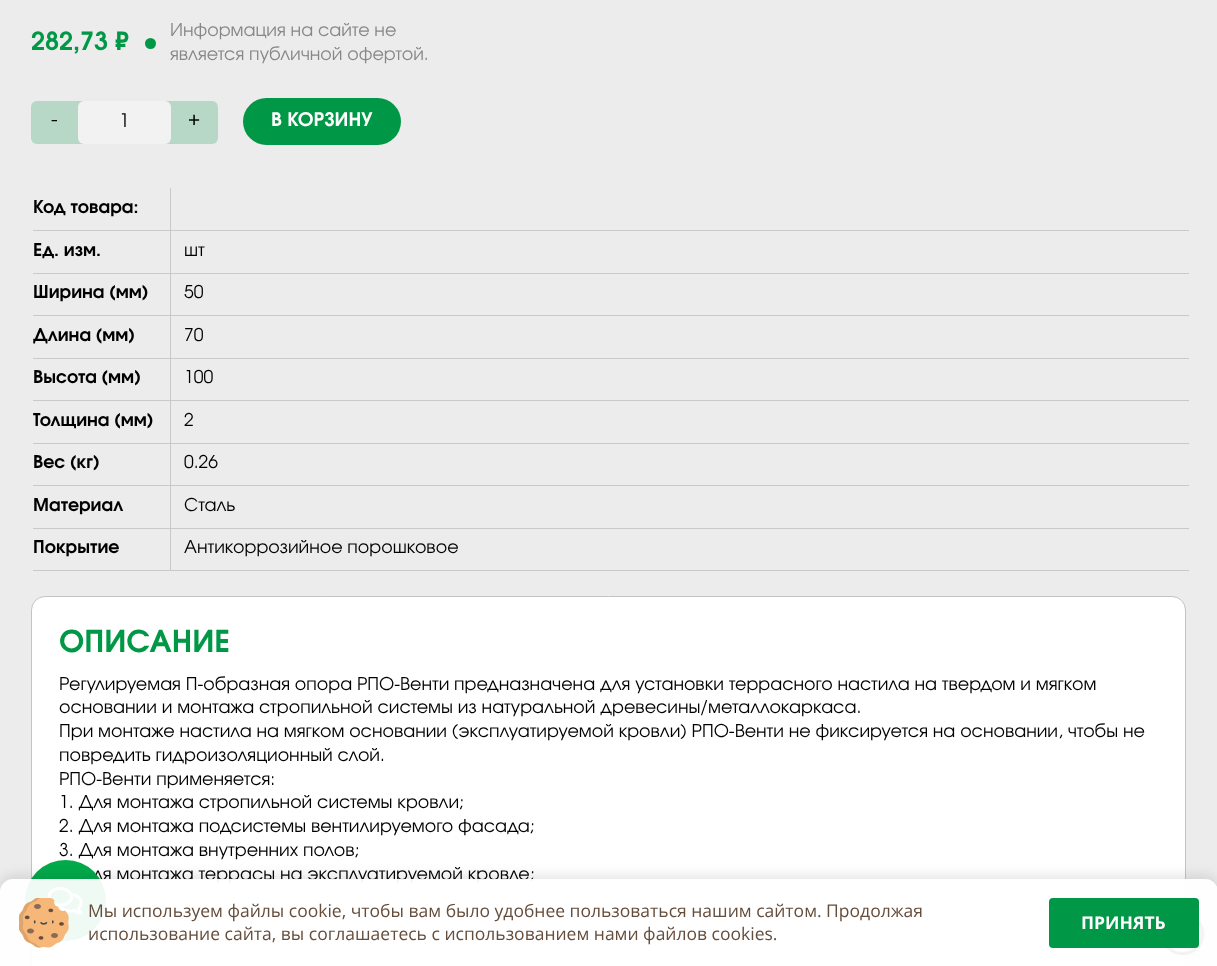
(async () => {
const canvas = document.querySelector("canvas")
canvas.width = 1217
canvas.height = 966
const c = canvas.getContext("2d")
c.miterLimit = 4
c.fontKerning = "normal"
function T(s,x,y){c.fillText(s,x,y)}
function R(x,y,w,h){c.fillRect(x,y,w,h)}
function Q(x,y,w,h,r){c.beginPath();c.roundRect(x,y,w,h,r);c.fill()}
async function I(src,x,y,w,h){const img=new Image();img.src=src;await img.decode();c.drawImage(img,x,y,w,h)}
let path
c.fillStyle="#ececec"
R(0,0,1217,966)
c.font="bold 25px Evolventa"
c.fillStyle="#009846"
T("282,73 ₽",31,50)
c.font="17.5px Evolventa"
c.fillStyle="#878787"
T("Информация на сайте не",170,36)
c.fillStyle="#009846"
c.beginPath()
c.arc(150.5,43.5,5.5,0,7)
c.fill()
c.fillStyle="#878787"
T("является публичной офертой.",170,60)
c.fillStyle="#b7d8c6"
Q(31,101,187,43,6)
c.font="20px Evolventa"
c.fillStyle="#000"
T("-",51,126)
c.fillStyle="#f2f2f2"
Q(78,101,93,43,6)
c.font="18.75px Evolventa"
c.fillStyle="#000"
T("1",119,127)
c.font="20px Evolventa"
T("+",188,126)
c.fillStyle="#009846"
Q(243,98,158,47,23.5)
c.font="bold 18.75px Evolventa"
c.fillStyle="#fff"
T("В КОРЗИНУ",271,126)
c.fillStyle="#c9c9c9"
R(170,570,1019,1)
R(170,528,1,43)
R(170,528,1019,1)
R(170,485,1,44)
R(170,485,1019,1)
R(170,443,1,43)
R(170,443,1019,1)
R(170,400,1,44)
R(170,400,1019,1)
R(170,358,1,43)
R(170,358,1019,1)
R(170,315,1,44)
R(170,315,1019,1)
R(170,273,1,43)
R(170,273,1019,1)
R(170,230,1,44)
R(170,230,1019,1)
R(170,188,1,43)
R(33,230,138,1)
c.font="bold 17.5px Evolventa"
c.fillStyle="#000"
T("Код товара:",33,213)
c.fillStyle="#c9c9c9"
R(33,273,138,1)
c.fillStyle="#000"
T("Ед. изм.",33,256)
c.font="17.5px Evolventa"
T("шт",184,256)
c.fillStyle="#c9c9c9"
R(33,315,138,1)
c.font="bold 17.5px Evolventa"
c.fillStyle="#000"
T("Ширина (мм)",33,298)
c.font="17.5px Evolventa"
T("50",184,298)
c.fillStyle="#c9c9c9"
R(33,358,138,1)
c.font="bold 17.5px Evolventa"
c.fillStyle="#000"
T("Длина (мм)",33,341)
c.font="17.5px Evolventa"
T("70",184,341)
c.fillStyle="#c9c9c9"
R(33,400,138,1)
c.font="bold 17.5px Evolventa"
c.fillStyle="#000"
T("Высота (мм)",33,383)
c.font="17.5px Evolventa"
T("100",184,383)
c.fillStyle="#c9c9c9"
R(33,443,138,1)
c.font="bold 17.5px Evolventa"
c.fillStyle="#000"
T("Толщина (мм)",33,426)
c.font="17.5px Evolventa"
T("2",184,426)
c.fillStyle="#c9c9c9"
R(33,485,138,1)
c.font="bold 17.5px Evolventa"
c.fillStyle="#000"
T("Вес (кг)",33,468)
c.font="17.5px Evolventa"
T("0.26",184,468)
c.fillStyle="#c9c9c9"
R(33,528,138,1)
c.font="bold 17.5px Evolventa"
c.fillStyle="#000"
T("Материал",33,511)
c.font="17.5px Evolventa"
T("Сталь",184,511)
c.fillStyle="#c9c9c9"
R(33,570,138,1)
c.font="bold 17.5px Evolventa"
c.fillStyle="#000"
T("Покрытие",33,553)
c.font="17.5px Evolventa"
T("Антикоррозийное порошковое",184,553)
c.fillStyle="#fff"
c.beginPath()
c.roundRect(31.5,596.5,1154,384,13.5)
c.fill()
c.strokeStyle="#c3c3c3"
c.stroke()
c.font="bold 30px Evolventa"
c.fillStyle="#009846"
T("ОПИСАНИЕ",59,652)
c.font="17.5px Evolventa"
c.fillStyle="#000"
T("Регулируемая П-образная опора РПО-Венти предназначена для установки террасного настила на твердом и мягком",59,690)
T("основании и монтажа стропильной системы из натуральной древесины/металлокаркаса.",59,713)
T("При монтаже настила на мягком основании (эксплуатируемой кровли) РПО-Венти не фиксируется на основании, чтобы не",59,737)
T("повредить гидроизоляционный слой.",59,761)
T("РПО-Венти применяется:",59,785)
T("1. Для монтажа стропильной системы кровли;",59,808)
T("2. Для монтажа подсистемы вентилируемого фасада;",59,832)
T("3. Для монтажа внутренних полов;",59,856)
T("ля монтажа террасы на эксплуатируемой кровле;",93,880)
c.fillStyle="#02aa4b"
c.beginPath()
c.arc(65.5,900.5,40.5,0,7)
c.fill()
await I("1.png",47,887,36,28)
await I("3.png",1166,919,39,37)
c.save()
path = new Path2D("M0 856h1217v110h-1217zm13 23h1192c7 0 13 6 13 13v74h-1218v-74c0-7 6-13 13-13z")
c.clip(path,"evenodd")
c.fillStyle="#0000001a"
c.filter="blur(6px)"
c.beginPath()
c.roundRect(0,875,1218,88,13)
c.fill()
c.filter="none"
c.restore()
c.fillStyle="#fffffff0"
path = new Path2D("M13 879h1192c7 0 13 6 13 13v74h-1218v-74c0-7 6-13 13-13z")
c.fill(path)
await I("2.png",19,898,50,50)
c.font="17.5px Open Sans"
c.fillStyle="#654d3b"
T("Мы используем файлы cookie, чтобы вам было удобнее пользоваться нашим сайтом. Продолжая",88,917)
T("использование сайта, вы соглашаетесь c использованием нами файлов cookies.",88,940)
c.fillStyle="#009846"
Q(1049,898,150,50,4)
c.font="bold 17.5px Open Sans"
c.fillStyle="#fff"
T("ПРИНЯТЬ",1081,929)
})()
